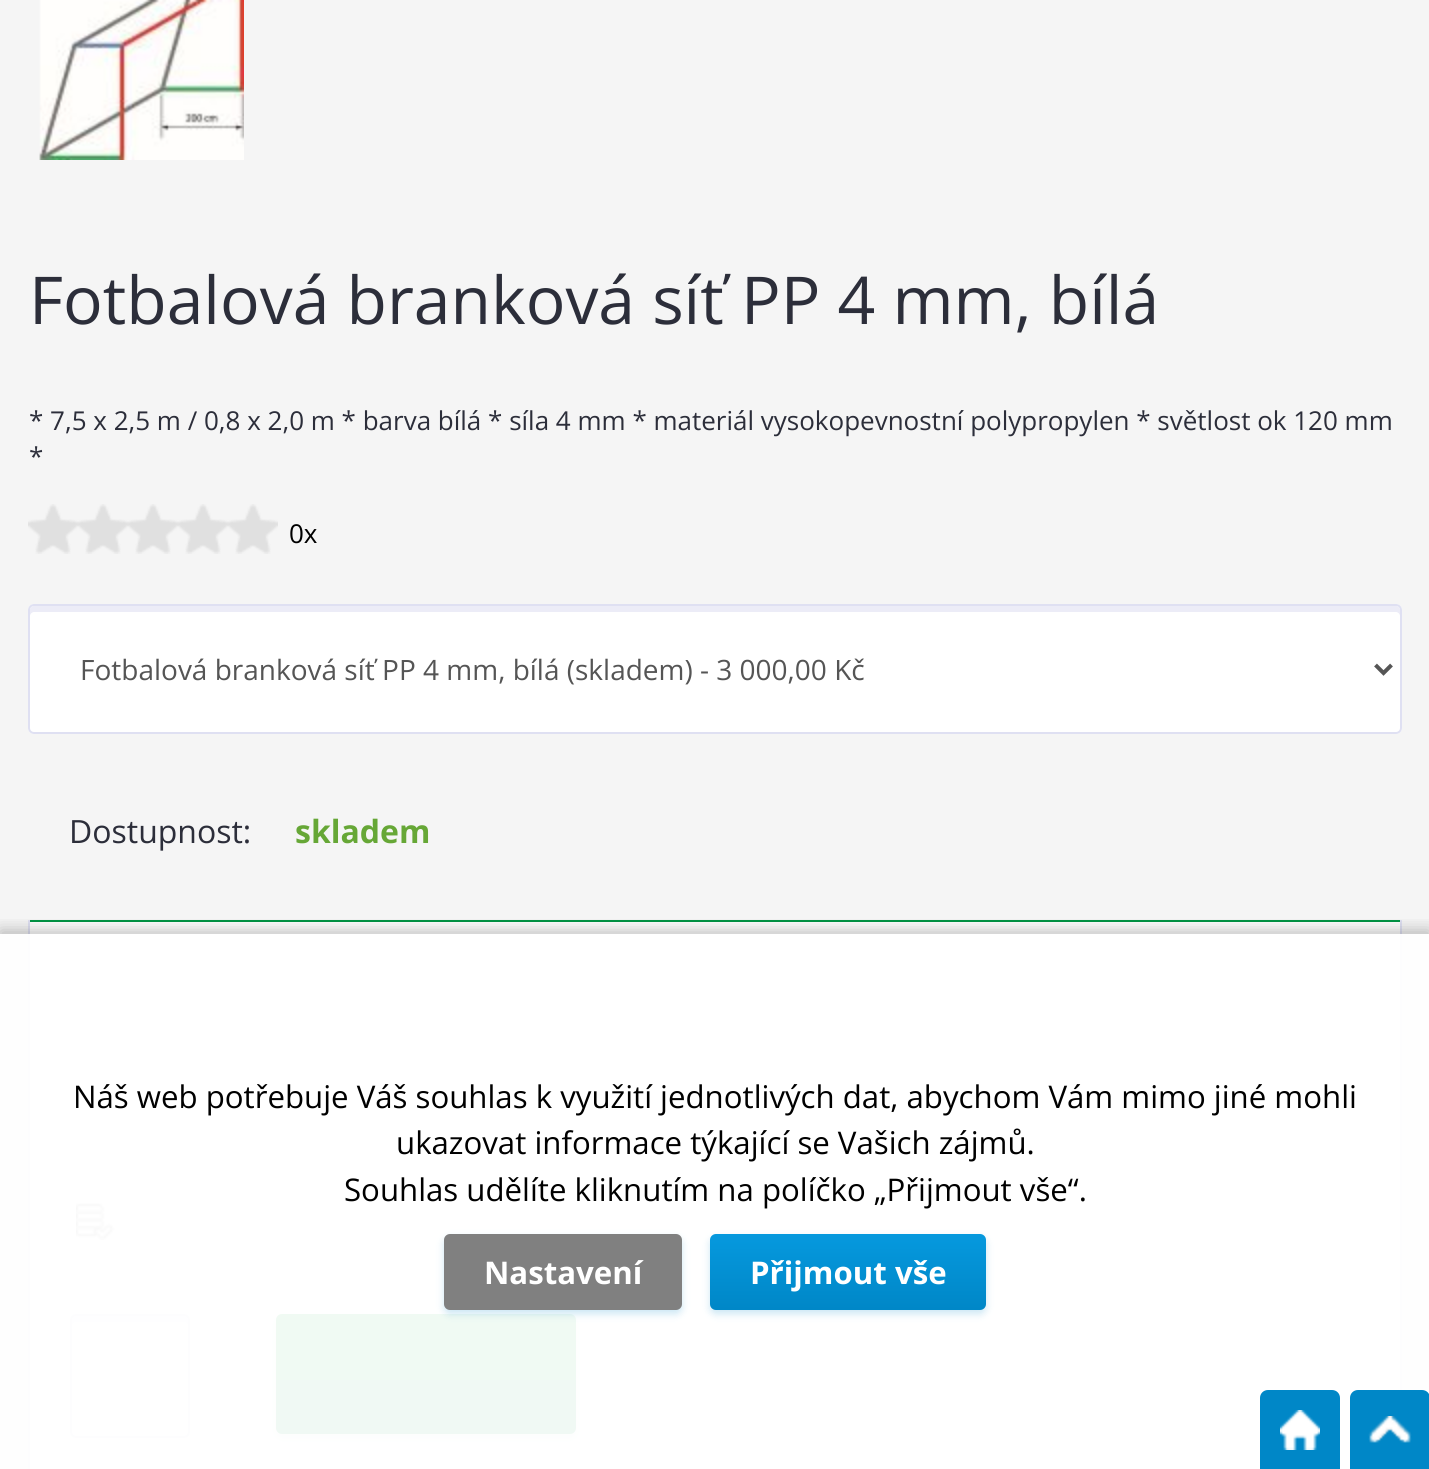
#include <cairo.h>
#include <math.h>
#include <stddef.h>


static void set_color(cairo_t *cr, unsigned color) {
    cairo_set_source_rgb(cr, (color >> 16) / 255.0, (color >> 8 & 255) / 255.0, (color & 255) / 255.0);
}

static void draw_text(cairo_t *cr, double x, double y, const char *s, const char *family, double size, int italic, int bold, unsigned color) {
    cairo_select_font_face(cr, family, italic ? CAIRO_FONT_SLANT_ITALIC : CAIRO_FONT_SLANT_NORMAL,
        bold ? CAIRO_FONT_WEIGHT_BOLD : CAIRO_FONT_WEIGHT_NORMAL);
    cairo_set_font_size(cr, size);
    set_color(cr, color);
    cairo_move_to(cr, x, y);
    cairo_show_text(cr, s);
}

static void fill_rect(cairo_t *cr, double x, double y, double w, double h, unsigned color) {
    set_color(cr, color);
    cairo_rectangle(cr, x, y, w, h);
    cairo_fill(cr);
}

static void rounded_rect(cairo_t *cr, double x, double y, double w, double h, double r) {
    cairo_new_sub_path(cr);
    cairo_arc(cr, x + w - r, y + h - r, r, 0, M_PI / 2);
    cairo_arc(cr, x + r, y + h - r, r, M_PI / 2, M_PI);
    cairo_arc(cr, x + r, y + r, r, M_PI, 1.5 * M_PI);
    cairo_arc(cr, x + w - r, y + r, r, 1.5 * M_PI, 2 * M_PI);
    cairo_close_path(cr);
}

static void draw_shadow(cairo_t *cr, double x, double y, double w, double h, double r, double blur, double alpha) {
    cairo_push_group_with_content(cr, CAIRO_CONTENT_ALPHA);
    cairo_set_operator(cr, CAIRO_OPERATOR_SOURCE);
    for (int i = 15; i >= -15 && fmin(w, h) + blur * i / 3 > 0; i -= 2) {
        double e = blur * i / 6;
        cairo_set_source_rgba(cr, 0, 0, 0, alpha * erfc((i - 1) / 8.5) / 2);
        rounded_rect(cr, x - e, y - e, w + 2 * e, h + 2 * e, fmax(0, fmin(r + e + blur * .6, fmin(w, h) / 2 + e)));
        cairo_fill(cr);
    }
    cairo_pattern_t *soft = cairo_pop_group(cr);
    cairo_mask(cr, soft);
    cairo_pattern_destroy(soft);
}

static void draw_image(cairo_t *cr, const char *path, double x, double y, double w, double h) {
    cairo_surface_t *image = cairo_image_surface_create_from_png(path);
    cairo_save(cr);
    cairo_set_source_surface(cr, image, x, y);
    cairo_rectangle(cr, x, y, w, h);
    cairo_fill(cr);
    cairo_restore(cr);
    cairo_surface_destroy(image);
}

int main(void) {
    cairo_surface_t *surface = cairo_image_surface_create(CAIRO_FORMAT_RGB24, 1429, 1469);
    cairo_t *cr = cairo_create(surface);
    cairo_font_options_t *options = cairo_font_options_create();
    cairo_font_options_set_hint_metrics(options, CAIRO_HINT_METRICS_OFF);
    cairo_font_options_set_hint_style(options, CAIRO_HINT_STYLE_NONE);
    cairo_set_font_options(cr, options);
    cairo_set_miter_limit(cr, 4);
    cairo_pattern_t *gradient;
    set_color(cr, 0xF5F5F5);
    cairo_paint(cr);
    draw_image(cr, "assets/img1.png", 39, 0, 205, 160);
    draw_text(cr, 29, 324, "Fotbalová branková síť PP 4 mm, bílá", "Open Sans", 66, 0, 0, 0x2C2E3A);
    draw_text(cr, 29, 430, "* 7,5 x 2,5 m / 0,8 x 2,0 m * barva bílá * síla 4 mm * materiál vysokopevnostní polypropylen * světlost ok 120 mm", "Open Sans", 26, 0, 0, 0x2C2E3A);
    draw_text(cr, 29, 466, "*", "Open Sans", 26, 0, 0, 0x2C2E3A);
    draw_image(cr, "assets/img2.png", 28, 504, 250, 50);
    draw_text(cr, 289, 543, "0x", "Open Sans", 26, 0, 0, 0x000000);
    set_color(cr, 0xFFFFFF);
    rounded_rect(cr, 28, 604, 1374, 130, 6);
    cairo_fill(cr);
    set_color(cr, 0xECECF7);
    cairo_new_path(cr);
    cairo_move_to(cr, 34, 612);
    cairo_line_to(cr, 1396, 612);
    cairo_curve_to(cr, 1398, 612, 1400, 614, 1400, 616);
    cairo_line_to(cr, 1400, 610);
    cairo_curve_to(cr, 1400, 608, 1398, 606, 1396, 606);
    cairo_line_to(cr, 34, 606);
    cairo_curve_to(cr, 32, 606, 30, 608, 30, 610);
    cairo_line_to(cr, 30, 616);
    cairo_curve_to(cr, 30, 614, 32, 612, 34, 612);
    cairo_close_path(cr);
    cairo_fill(cr);
    rounded_rect(cr, 29, 605, 1372, 128, 5);
    set_color(cr, 0xDFE0F2);
    cairo_stroke(cr);
    cairo_new_path(cr);
    cairo_move_to(cr, 1375.5, 665);
    cairo_line_to(cr, 1383.5, 673);
    cairo_line_to(cr, 1391.5, 665);
    set_color(cr, 0x555555);
    cairo_set_line_width(cr, 4);
    cairo_stroke(cr);
    draw_text(cr, 80, 680, "Fotbalová branková síť PP 4 mm, bílá (skladem) - 3 000,00 Kč", "Open Sans", 28, 0, 0, 0x555555);
    draw_text(cr, 69, 843, "Dostupnost:", "Open Sans", 32, 0, 0, 0x2C2E3A);
    draw_text(cr, 295, 843, "skladem", "Open Sans", 32, 0, 1, 0x66A736);
    fill_rect(cr, 30, 922, 1370, 547, 0xFFFFFF);
    fill_rect(cr, 28, 920, 1374, 2, 0x009445);
    fill_rect(cr, 1400, 920, 2, 470, 0xDFE0F2);
    fill_rect(cr, 28, 920, 2, 549, 0xDFE0F2);
    draw_image(cr, "assets/img3.png", 76, 1203, 39, 37);
    set_color(cr, 0xECECF7);
    cairo_new_path(cr);
    cairo_move_to(cr, 76, 1322);
    cairo_line_to(cr, 184, 1322);
    cairo_curve_to(cr, 186, 1322, 188, 1324, 188, 1326);
    cairo_line_to(cr, 188, 1320);
    cairo_curve_to(cr, 188, 1318, 186, 1316, 184, 1316);
    cairo_line_to(cr, 76, 1316);
    cairo_curve_to(cr, 74, 1316, 72, 1318, 72, 1320);
    cairo_line_to(cr, 72, 1326);
    cairo_curve_to(cr, 72, 1324, 74, 1322, 76, 1322);
    cairo_close_path(cr);
    cairo_fill(cr);
    rounded_rect(cr, 71, 1315, 118, 122, 5);
    set_color(cr, 0xDFE0F2);
    cairo_set_line_width(cr, 2);
    cairo_stroke(cr);
    set_color(cr, 0x009445);
    draw_shadow(cr, 276, 1318, 300, 120, 6, 4, 0.2);
    gradient = cairo_pattern_create_linear(426, 1314, 426, 1434);
    cairo_pattern_add_color_stop_rgba(gradient, 0, 0, 0.698, 0.188, 1);
    cairo_pattern_add_color_stop_rgba(gradient, 1, 0, 0.58, 0.271, 1);
    cairo_set_source(cr, gradient);
    cairo_pattern_destroy(gradient);
    rounded_rect(cr, 276, 1314, 300, 120, 6);
    cairo_fill(cr);
    cairo_save(cr);
    cairo_rectangle(cr, 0, 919, 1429, 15);
    cairo_clip(cr);
    set_color(cr, 0x000000);
    draw_shadow(cr, 0, 930, 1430, 536, 0, 8, 0.25);
    cairo_restore(cr);
    cairo_set_source_rgba(cr, 1, 1, 1, 0.94);
    cairo_rectangle(cr, 0, 934, 1429, 535);
    cairo_fill(cr);
    draw_text(cr, 73, 1108, "Náš web potřebuje Váš souhlas k využití jednotlivých dat, abychom Vám mimo jiné mohli", "Open Sans", 31.2, 0, 0, 0x000000);
    draw_text(cr, 396, 1154, "ukazovat informace týkající se Vašich zájmů.", "Open Sans", 31.2, 0, 0, 0x000000);
    draw_text(cr, 344, 1201, "Souhlas udělíte kliknutím na políčko „Přijmout vše“.", "Open Sans", 31.2, 0, 0, 0x000000);
    set_color(cr, 0x0087C7);
    draw_shadow(cr, 444, 1238, 238, 76, 6, 4, 0.2);
    set_color(cr, 0x808080);
    rounded_rect(cr, 444, 1234, 238, 76, 6);
    cairo_fill(cr);
    draw_text(cr, 484, 1284, "Nastavení", "Open Sans", 31.2, 0, 1, 0xFFFFFF);
    set_color(cr, 0x0087C7);
    draw_shadow(cr, 710, 1238, 276, 76, 6, 4, 0.2);
    gradient = cairo_pattern_create_linear(848, 1234, 848, 1310);
    cairo_pattern_add_color_stop_rgba(gradient, 0, 0.024, 0.6, 0.871, 1);
    cairo_pattern_add_color_stop_rgba(gradient, 1, 0, 0.529, 0.78, 1);
    cairo_set_source(cr, gradient);
    cairo_pattern_destroy(gradient);
    rounded_rect(cr, 710, 1234, 276, 76, 6);
    cairo_fill(cr);
    draw_text(cr, 750, 1284, "Přijmout vše", "Open Sans", 31.2, 0, 1, 0xFFFFFF);
    set_color(cr, 0x0087C7);
    cairo_new_path(cr);
    cairo_move_to(cr, 1268, 1390);
    cairo_line_to(cr, 1332, 1390);
    cairo_curve_to(cr, 1336.5, 1390, 1340, 1393.5, 1340, 1398);
    cairo_line_to(cr, 1340, 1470);
    cairo_line_to(cr, 1260, 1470);
    cairo_line_to(cr, 1260, 1398);
    cairo_curve_to(cr, 1260, 1393.5, 1263.5, 1390, 1268, 1390);
    cairo_close_path(cr);
    cairo_fill(cr);
    draw_image(cr, "assets/img4.png", 1280, 1410, 40, 40);
    cairo_new_path(cr);
    cairo_move_to(cr, 1358, 1390);
    cairo_line_to(cr, 1422, 1390);
    cairo_curve_to(cr, 1426.5, 1390, 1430, 1393.5, 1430, 1398);
    cairo_line_to(cr, 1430, 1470);
    cairo_line_to(cr, 1350, 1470);
    cairo_line_to(cr, 1350, 1398);
    cairo_curve_to(cr, 1350, 1393.5, 1353.5, 1390, 1358, 1390);
    cairo_close_path(cr);
    cairo_fill(cr);
    draw_image(cr, "assets/img5.png", 1368, 1416, 44, 27);
    cairo_surface_write_to_png(surface, "output.png");
    cairo_font_options_destroy(options);
    cairo_destroy(cr);
    cairo_surface_destroy(surface);
    return 0;
}
